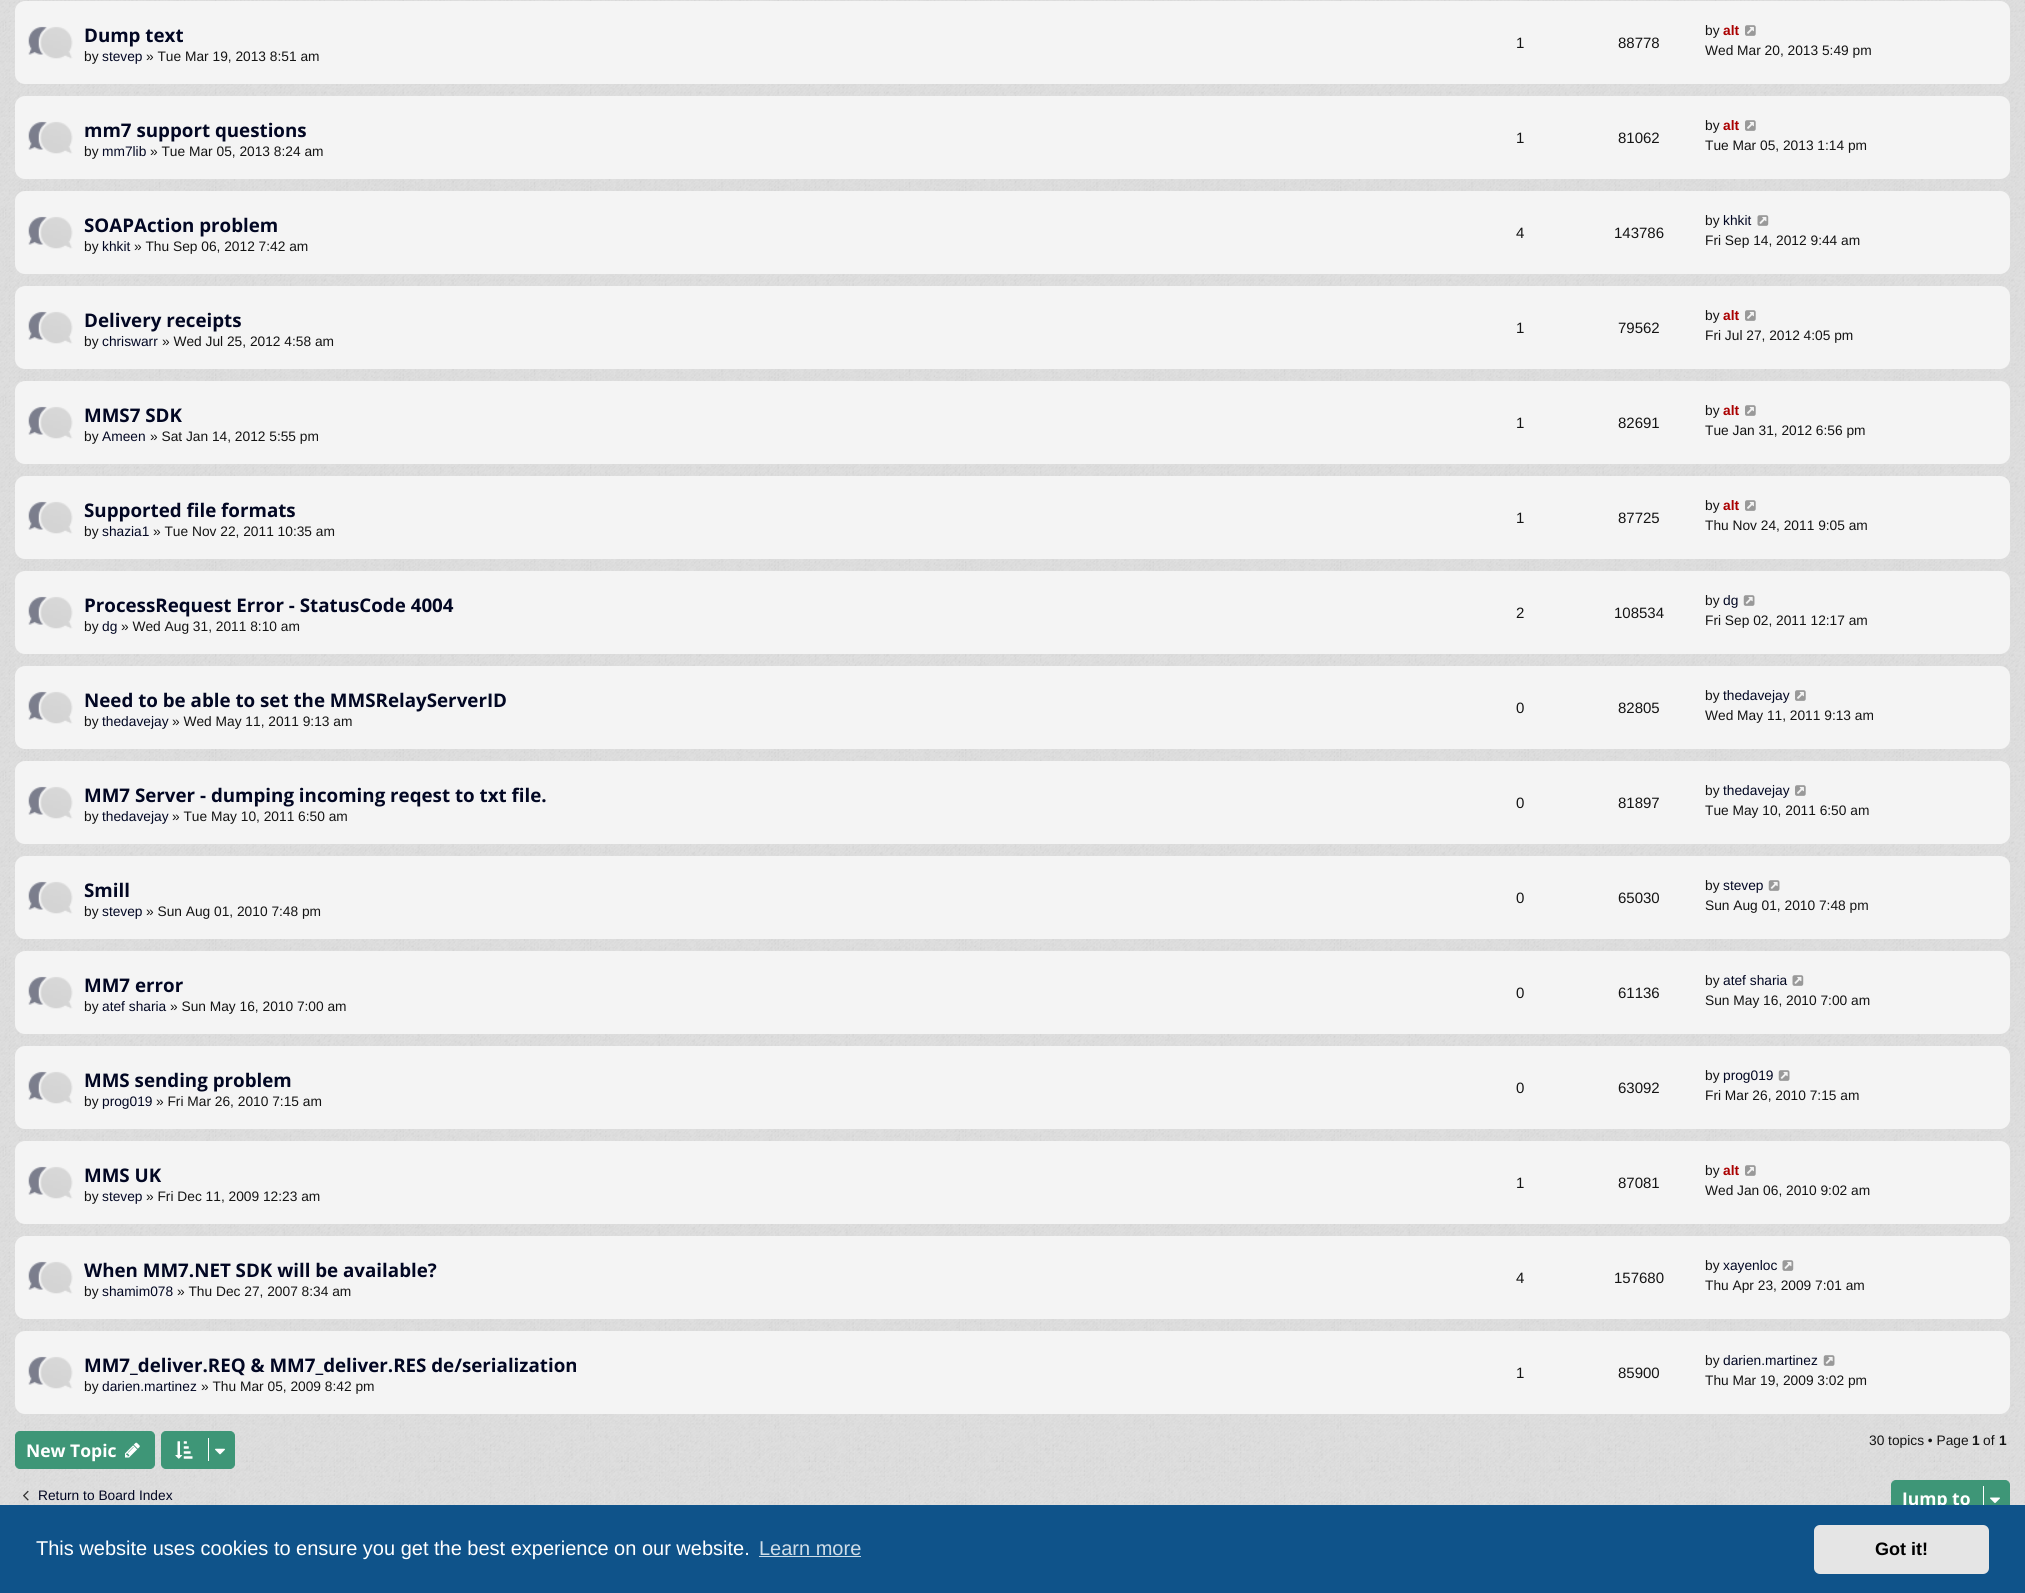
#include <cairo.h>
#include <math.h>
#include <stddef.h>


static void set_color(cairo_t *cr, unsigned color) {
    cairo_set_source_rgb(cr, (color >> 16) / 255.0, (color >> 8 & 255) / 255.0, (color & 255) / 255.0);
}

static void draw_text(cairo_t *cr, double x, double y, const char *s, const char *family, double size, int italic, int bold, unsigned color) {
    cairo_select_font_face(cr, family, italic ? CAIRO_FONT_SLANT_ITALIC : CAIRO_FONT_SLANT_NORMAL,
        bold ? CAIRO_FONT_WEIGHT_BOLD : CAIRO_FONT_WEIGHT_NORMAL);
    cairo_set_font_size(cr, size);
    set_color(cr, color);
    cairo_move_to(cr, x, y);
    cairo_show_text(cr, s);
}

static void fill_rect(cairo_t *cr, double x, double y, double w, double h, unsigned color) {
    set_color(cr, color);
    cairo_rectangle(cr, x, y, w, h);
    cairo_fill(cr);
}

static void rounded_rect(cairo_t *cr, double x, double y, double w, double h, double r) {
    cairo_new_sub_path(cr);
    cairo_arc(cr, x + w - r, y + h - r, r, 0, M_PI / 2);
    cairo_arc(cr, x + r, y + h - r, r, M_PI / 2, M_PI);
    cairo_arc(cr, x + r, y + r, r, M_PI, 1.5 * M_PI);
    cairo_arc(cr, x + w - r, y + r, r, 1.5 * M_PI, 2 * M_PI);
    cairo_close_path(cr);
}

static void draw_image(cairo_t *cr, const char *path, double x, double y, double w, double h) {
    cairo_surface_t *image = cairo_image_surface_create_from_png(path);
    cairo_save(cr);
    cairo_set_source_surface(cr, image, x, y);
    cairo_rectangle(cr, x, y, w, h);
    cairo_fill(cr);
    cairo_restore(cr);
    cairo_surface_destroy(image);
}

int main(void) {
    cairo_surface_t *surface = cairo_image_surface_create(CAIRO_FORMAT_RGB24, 2025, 1593);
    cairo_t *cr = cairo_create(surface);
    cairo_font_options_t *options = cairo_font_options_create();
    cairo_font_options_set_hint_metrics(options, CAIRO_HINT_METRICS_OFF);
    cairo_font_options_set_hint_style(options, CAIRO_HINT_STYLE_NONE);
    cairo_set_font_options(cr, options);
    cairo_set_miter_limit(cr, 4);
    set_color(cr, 0xE0E0E0);
    cairo_paint(cr);
    draw_image(cr, "assets/img1.png", 0, 0, 2025, 1505);
    set_color(cr, 0xF4F4F4);
    rounded_rect(cr, 15, 1, 1995, 83, 10);
    cairo_fill(cr);
    draw_image(cr, "assets/img2.png", 28, 26, 45, 33);
    draw_text(cr, 84, 42, "Dump text", "Open Sans", 18.75, 0, 1, 0x020723);
    draw_text(cr, 84, 61, "by", "Liberation Sans", 13.75, 0, 0, 0x141414);
    draw_text(cr, 102, 61, "stevep", "Liberation Sans", 13.75, 0, 0, 0x020723);
    draw_text(cr, 146, 61, "» Tue Mar 19, 2013 8:51 am", "Liberation Sans", 13.75, 0, 0, 0x141414);
    draw_text(cr, 1516, 48, "1", "Liberation Sans", 15, 0, 0, 0x141414);
    draw_text(cr, 1618, 48, "88778", "Liberation Sans", 15, 0, 0, 0x141414);
    draw_text(cr, 1705, 35, "by", "Liberation Sans", 13.75, 0, 0, 0x141414);
    draw_text(cr, 1723, 35, "alt", "Liberation Sans", 13.75, 0, 1, 0xAA0000);
    draw_image(cr, "assets/img3.png", 1745, 25, 11, 11);
    draw_text(cr, 1705, 55, "Wed Mar 20, 2013 5:49 pm", "Liberation Sans", 13.75, 0, 0, 0x141414);
    set_color(cr, 0xF4F4F4);
    rounded_rect(cr, 15, 96, 1995, 83, 10);
    cairo_fill(cr);
    draw_image(cr, "assets/img2.png", 28, 121, 45, 33);
    draw_text(cr, 84, 137, "mm7 support questions", "Open Sans", 18.75, 0, 1, 0x020723);
    draw_text(cr, 84, 156, "by", "Liberation Sans", 13.75, 0, 0, 0x141414);
    draw_text(cr, 102, 156, "mm7lib", "Liberation Sans", 13.75, 0, 0, 0x020723);
    draw_text(cr, 150, 156, "» Tue Mar 05, 2013 8:24 am", "Liberation Sans", 13.75, 0, 0, 0x141414);
    draw_text(cr, 1516, 143, "1", "Liberation Sans", 15, 0, 0, 0x141414);
    draw_text(cr, 1618, 143, "81062", "Liberation Sans", 15, 0, 0, 0x141414);
    draw_text(cr, 1705, 130, "by", "Liberation Sans", 13.75, 0, 0, 0x141414);
    draw_text(cr, 1723, 130, "alt", "Liberation Sans", 13.75, 0, 1, 0xAA0000);
    draw_image(cr, "assets/img3.png", 1745, 120, 11, 11);
    draw_text(cr, 1705, 150, "Tue Mar 05, 2013 1:14 pm", "Liberation Sans", 13.75, 0, 0, 0x141414);
    set_color(cr, 0xF4F4F4);
    rounded_rect(cr, 15, 191, 1995, 83, 10);
    cairo_fill(cr);
    draw_image(cr, "assets/img2.png", 28, 216, 45, 33);
    draw_text(cr, 84, 232, "SOAPAction problem", "Open Sans", 18.75, 0, 1, 0x020723);
    draw_text(cr, 84, 251, "by", "Liberation Sans", 13.75, 0, 0, 0x141414);
    draw_text(cr, 102, 251, "khkit", "Liberation Sans", 13.75, 0, 0, 0x020723);
    draw_text(cr, 134, 251, "» Thu Sep 06, 2012 7:42 am", "Liberation Sans", 13.75, 0, 0, 0x141414);
    draw_text(cr, 1516, 238, "4", "Liberation Sans", 15, 0, 0, 0x141414);
    draw_text(cr, 1614, 238, "143786", "Liberation Sans", 15, 0, 0, 0x141414);
    draw_text(cr, 1705, 225, "by", "Liberation Sans", 13.75, 0, 0, 0x141414);
    draw_text(cr, 1723, 225, "khkit", "Liberation Sans", 13.75, 0, 0, 0x020723);
    draw_image(cr, "assets/img4.png", 1757, 215, 12, 11);
    draw_text(cr, 1705, 245, "Fri Sep 14, 2012 9:44 am", "Liberation Sans", 13.75, 0, 0, 0x141414);
    set_color(cr, 0xF4F4F4);
    rounded_rect(cr, 15, 286, 1995, 83, 10);
    cairo_fill(cr);
    draw_image(cr, "assets/img2.png", 28, 311, 45, 33);
    draw_text(cr, 84, 327, "Delivery receipts", "Open Sans", 18.75, 0, 1, 0x020723);
    draw_text(cr, 84, 346, "by", "Liberation Sans", 13.75, 0, 0, 0x141414);
    draw_text(cr, 102, 346, "chriswarr", "Liberation Sans", 13.75, 0, 0, 0x020723);
    draw_text(cr, 162, 346, "» Wed Jul 25, 2012 4:58 am", "Liberation Sans", 13.75, 0, 0, 0x141414);
    draw_text(cr, 1516, 333, "1", "Liberation Sans", 15, 0, 0, 0x141414);
    draw_text(cr, 1618, 333, "79562", "Liberation Sans", 15, 0, 0, 0x141414);
    draw_text(cr, 1705, 320, "by", "Liberation Sans", 13.75, 0, 0, 0x141414);
    draw_text(cr, 1723, 320, "alt", "Liberation Sans", 13.75, 0, 1, 0xAA0000);
    draw_image(cr, "assets/img3.png", 1745, 310, 11, 11);
    draw_text(cr, 1705, 340, "Fri Jul 27, 2012 4:05 pm", "Liberation Sans", 13.75, 0, 0, 0x141414);
    set_color(cr, 0xF4F4F4);
    rounded_rect(cr, 15, 381, 1995, 83, 10);
    cairo_fill(cr);
    draw_image(cr, "assets/img2.png", 28, 406, 45, 33);
    draw_text(cr, 84, 422, "MMS7 SDK", "Open Sans", 18.75, 0, 1, 0x020723);
    draw_text(cr, 84, 441, "by", "Liberation Sans", 13.75, 0, 0, 0x141414);
    draw_text(cr, 102, 441, "Ameen", "Liberation Sans", 13.75, 0, 0, 0x020723);
    draw_text(cr, 150, 441, "» Sat Jan 14, 2012 5:55 pm", "Liberation Sans", 13.75, 0, 0, 0x141414);
    draw_text(cr, 1516, 428, "1", "Liberation Sans", 15, 0, 0, 0x141414);
    draw_text(cr, 1618, 428, "82691", "Liberation Sans", 15, 0, 0, 0x141414);
    draw_text(cr, 1705, 415, "by", "Liberation Sans", 13.75, 0, 0, 0x141414);
    draw_text(cr, 1723, 415, "alt", "Liberation Sans", 13.75, 0, 1, 0xAA0000);
    draw_image(cr, "assets/img3.png", 1745, 405, 11, 11);
    draw_text(cr, 1705, 435, "Tue Jan 31, 2012 6:56 pm", "Liberation Sans", 13.75, 0, 0, 0x141414);
    set_color(cr, 0xF4F4F4);
    rounded_rect(cr, 15, 476, 1995, 83, 10);
    cairo_fill(cr);
    draw_image(cr, "assets/img2.png", 28, 501, 45, 33);
    draw_text(cr, 84, 517, "Supported file formats", "Open Sans", 18.75, 0, 1, 0x020723);
    draw_text(cr, 84, 536, "by", "Liberation Sans", 13.75, 0, 0, 0x141414);
    draw_text(cr, 102, 536, "shazia1", "Liberation Sans", 13.75, 0, 0, 0x020723);
    draw_text(cr, 153, 536, "» Tue Nov 22, 2011 10:35 am", "Liberation Sans", 13.75, 0, 0, 0x141414);
    draw_text(cr, 1516, 523, "1", "Liberation Sans", 15, 0, 0, 0x141414);
    draw_text(cr, 1618, 523, "87725", "Liberation Sans", 15, 0, 0, 0x141414);
    draw_text(cr, 1705, 510, "by", "Liberation Sans", 13.75, 0, 0, 0x141414);
    draw_text(cr, 1723, 510, "alt", "Liberation Sans", 13.75, 0, 1, 0xAA0000);
    draw_image(cr, "assets/img3.png", 1745, 500, 11, 11);
    draw_text(cr, 1705, 530, "Thu Nov 24, 2011 9:05 am", "Liberation Sans", 13.75, 0, 0, 0x141414);
    set_color(cr, 0xF4F4F4);
    rounded_rect(cr, 15, 571, 1995, 83, 10);
    cairo_fill(cr);
    draw_image(cr, "assets/img5.png", 28, 596, 45, 33);
    draw_text(cr, 84, 612, "ProcessRequest Error - StatusCode 4004", "Open Sans", 18.75, 0, 1, 0x020723);
    draw_text(cr, 84, 631, "by", "Liberation Sans", 13.75, 0, 0, 0x141414);
    draw_text(cr, 102, 631, "dg", "Liberation Sans", 13.75, 0, 0, 0x020723);
    draw_text(cr, 121, 631, "» Wed Aug 31, 2011 8:10 am", "Liberation Sans", 13.75, 0, 0, 0x141414);
    draw_text(cr, 1516, 618, "2", "Liberation Sans", 15, 0, 0, 0x141414);
    draw_text(cr, 1614, 618, "108534", "Liberation Sans", 15, 0, 0, 0x141414);
    draw_text(cr, 1705, 605, "by", "Liberation Sans", 13.75, 0, 0, 0x141414);
    draw_text(cr, 1723, 605, "dg", "Liberation Sans", 13.75, 0, 0, 0x020723);
    draw_image(cr, "assets/img6.png", 1743, 595, 12, 11);
    draw_text(cr, 1705, 625, "Fri Sep 02, 2011 12:17 am", "Liberation Sans", 13.75, 0, 0, 0x141414);
    set_color(cr, 0xF4F4F4);
    rounded_rect(cr, 15, 666, 1995, 83, 10);
    cairo_fill(cr);
    draw_image(cr, "assets/img2.png", 28, 691, 45, 33);
    draw_text(cr, 84, 707, "Need to be able to set the MMSRelayServerID", "Open Sans", 18.75, 0, 1, 0x020723);
    draw_text(cr, 84, 726, "by", "Liberation Sans", 13.75, 0, 0, 0x141414);
    draw_text(cr, 102, 726, "thedavejay", "Liberation Sans", 13.75, 0, 0, 0x020723);
    draw_text(cr, 172, 726, "» Wed May 11, 2011 9:13 am", "Liberation Sans", 13.75, 0, 0, 0x141414);
    draw_text(cr, 1516, 713, "0", "Liberation Sans", 15, 0, 0, 0x141414);
    draw_text(cr, 1618, 713, "82805", "Liberation Sans", 15, 0, 0, 0x141414);
    draw_text(cr, 1705, 700, "by", "Liberation Sans", 13.75, 0, 0, 0x141414);
    draw_text(cr, 1723, 700, "thedavejay", "Liberation Sans", 13.75, 0, 0, 0x020723);
    draw_image(cr, "assets/img3.png", 1795, 690, 11, 11);
    draw_text(cr, 1705, 720, "Wed May 11, 2011 9:13 am", "Liberation Sans", 13.75, 0, 0, 0x141414);
    set_color(cr, 0xF4F4F4);
    rounded_rect(cr, 15, 761, 1995, 83, 10);
    cairo_fill(cr);
    draw_image(cr, "assets/img2.png", 28, 786, 45, 33);
    draw_text(cr, 84, 802, "MM7 Server - dumping incoming reqest to txt file.", "Open Sans", 18.75, 0, 1, 0x020723);
    draw_text(cr, 84, 821, "by", "Liberation Sans", 13.75, 0, 0, 0x141414);
    draw_text(cr, 102, 821, "thedavejay", "Liberation Sans", 13.75, 0, 0, 0x020723);
    draw_text(cr, 172, 821, "» Tue May 10, 2011 6:50 am", "Liberation Sans", 13.75, 0, 0, 0x141414);
    draw_text(cr, 1516, 808, "0", "Liberation Sans", 15, 0, 0, 0x141414);
    draw_text(cr, 1618, 808, "81897", "Liberation Sans", 15, 0, 0, 0x141414);
    draw_text(cr, 1705, 795, "by", "Liberation Sans", 13.75, 0, 0, 0x141414);
    draw_text(cr, 1723, 795, "thedavejay", "Liberation Sans", 13.75, 0, 0, 0x020723);
    draw_image(cr, "assets/img3.png", 1795, 785, 11, 11);
    draw_text(cr, 1705, 815, "Tue May 10, 2011 6:50 am", "Liberation Sans", 13.75, 0, 0, 0x141414);
    set_color(cr, 0xF4F4F4);
    rounded_rect(cr, 15, 856, 1995, 83, 10);
    cairo_fill(cr);
    draw_image(cr, "assets/img2.png", 28, 881, 45, 33);
    draw_text(cr, 84, 897, "Smill", "Open Sans", 18.75, 0, 1, 0x020723);
    draw_text(cr, 84, 916, "by", "Liberation Sans", 13.75, 0, 0, 0x141414);
    draw_text(cr, 102, 916, "stevep", "Liberation Sans", 13.75, 0, 0, 0x020723);
    draw_text(cr, 146, 916, "» Sun Aug 01, 2010 7:48 pm", "Liberation Sans", 13.75, 0, 0, 0x141414);
    draw_text(cr, 1516, 903, "0", "Liberation Sans", 15, 0, 0, 0x141414);
    draw_text(cr, 1618, 903, "65030", "Liberation Sans", 15, 0, 0, 0x141414);
    draw_text(cr, 1705, 890, "by", "Liberation Sans", 13.75, 0, 0, 0x141414);
    draw_text(cr, 1723, 890, "stevep", "Liberation Sans", 13.75, 0, 0, 0x020723);
    draw_image(cr, "assets/img6.png", 1768, 880, 12, 11);
    draw_text(cr, 1705, 910, "Sun Aug 01, 2010 7:48 pm", "Liberation Sans", 13.75, 0, 0, 0x141414);
    set_color(cr, 0xF4F4F4);
    rounded_rect(cr, 15, 951, 1995, 83, 10);
    cairo_fill(cr);
    draw_image(cr, "assets/img7.png", 28, 976, 45, 33);
    draw_text(cr, 84, 992, "MM7 error", "Open Sans", 18.75, 0, 1, 0x020723);
    draw_text(cr, 84, 1011, "by", "Liberation Sans", 13.75, 0, 0, 0x141414);
    draw_text(cr, 102, 1011, "atef sharia", "Liberation Sans", 13.75, 0, 0, 0x020723);
    draw_text(cr, 170, 1011, "» Sun May 16, 2010 7:00 am", "Liberation Sans", 13.75, 0, 0, 0x141414);
    draw_text(cr, 1516, 998, "0", "Liberation Sans", 15, 0, 0, 0x141414);
    draw_text(cr, 1618, 998, "61136", "Liberation Sans", 15, 0, 0, 0x141414);
    draw_text(cr, 1705, 985, "by", "Liberation Sans", 13.75, 0, 0, 0x141414);
    draw_text(cr, 1723, 985, "atef sharia", "Liberation Sans", 13.75, 0, 0, 0x020723);
    draw_image(cr, "assets/img4.png", 1792, 975, 12, 11);
    draw_text(cr, 1705, 1005, "Sun May 16, 2010 7:00 am", "Liberation Sans", 13.75, 0, 0, 0x141414);
    set_color(cr, 0xF4F4F4);
    rounded_rect(cr, 15, 1046, 1995, 83, 10);
    cairo_fill(cr);
    draw_image(cr, "assets/img2.png", 28, 1071, 45, 33);
    draw_text(cr, 84, 1087, "MMS sending problem", "Open Sans", 18.75, 0, 1, 0x020723);
    draw_text(cr, 84, 1106, "by", "Liberation Sans", 13.75, 0, 0, 0x141414);
    draw_text(cr, 102, 1106, "prog019", "Liberation Sans", 13.75, 0, 0, 0x020723);
    draw_text(cr, 156, 1106, "» Fri Mar 26, 2010 7:15 am", "Liberation Sans", 13.75, 0, 0, 0x141414);
    draw_text(cr, 1516, 1093, "0", "Liberation Sans", 15, 0, 0, 0x141414);
    draw_text(cr, 1618, 1093, "63092", "Liberation Sans", 15, 0, 0, 0x141414);
    draw_text(cr, 1705, 1080, "by", "Liberation Sans", 13.75, 0, 0, 0x141414);
    draw_text(cr, 1723, 1080, "prog019", "Liberation Sans", 13.75, 0, 0, 0x020723);
    draw_image(cr, "assets/img6.png", 1778, 1070, 12, 11);
    draw_text(cr, 1705, 1100, "Fri Mar 26, 2010 7:15 am", "Liberation Sans", 13.75, 0, 0, 0x141414);
    set_color(cr, 0xF4F4F4);
    rounded_rect(cr, 15, 1141, 1995, 83, 10);
    cairo_fill(cr);
    draw_image(cr, "assets/img2.png", 28, 1166, 45, 33);
    draw_text(cr, 84, 1182, "MMS UK", "Open Sans", 18.75, 0, 1, 0x020723);
    draw_text(cr, 84, 1201, "by", "Liberation Sans", 13.75, 0, 0, 0x141414);
    draw_text(cr, 102, 1201, "stevep", "Liberation Sans", 13.75, 0, 0, 0x020723);
    draw_text(cr, 146, 1201, "» Fri Dec 11, 2009 12:23 am", "Liberation Sans", 13.75, 0, 0, 0x141414);
    draw_text(cr, 1516, 1188, "1", "Liberation Sans", 15, 0, 0, 0x141414);
    draw_text(cr, 1618, 1188, "87081", "Liberation Sans", 15, 0, 0, 0x141414);
    draw_text(cr, 1705, 1175, "by", "Liberation Sans", 13.75, 0, 0, 0x141414);
    draw_text(cr, 1723, 1175, "alt", "Liberation Sans", 13.75, 0, 1, 0xAA0000);
    draw_image(cr, "assets/img3.png", 1745, 1165, 11, 11);
    draw_text(cr, 1705, 1195, "Wed Jan 06, 2010 9:02 am", "Liberation Sans", 13.75, 0, 0, 0x141414);
    set_color(cr, 0xF4F4F4);
    rounded_rect(cr, 15, 1236, 1995, 83, 10);
    cairo_fill(cr);
    draw_image(cr, "assets/img8.png", 28, 1261, 45, 33);
    draw_text(cr, 84, 1277, "When MM7.NET SDK will be available?", "Open Sans", 18.75, 0, 1, 0x020723);
    draw_text(cr, 84, 1296, "by", "Liberation Sans", 13.75, 0, 0, 0x141414);
    draw_text(cr, 102, 1296, "shamim078", "Liberation Sans", 13.75, 0, 0, 0x020723);
    draw_text(cr, 177, 1296, "» Thu Dec 27, 2007 8:34 am", "Liberation Sans", 13.75, 0, 0, 0x141414);
    draw_text(cr, 1516, 1283, "4", "Liberation Sans", 15, 0, 0, 0x141414);
    draw_text(cr, 1614, 1283, "157680", "Liberation Sans", 15, 0, 0, 0x141414);
    draw_text(cr, 1705, 1270, "by", "Liberation Sans", 13.75, 0, 0, 0x141414);
    draw_text(cr, 1723, 1270, "xayenloc", "Liberation Sans", 13.75, 0, 0, 0x020723);
    draw_image(cr, "assets/img4.png", 1782, 1260, 12, 11);
    draw_text(cr, 1705, 1290, "Thu Apr 23, 2009 7:01 am", "Liberation Sans", 13.75, 0, 0, 0x141414);
    set_color(cr, 0xF4F4F4);
    rounded_rect(cr, 15, 1331, 1995, 83, 10);
    cairo_fill(cr);
    draw_image(cr, "assets/img2.png", 28, 1356, 45, 33);
    draw_text(cr, 84, 1372, "MM7_deliver.REQ & MM7_deliver.RES de/serialization", "Open Sans", 18.75, 0, 1, 0x020723);
    draw_text(cr, 84, 1391, "by", "Liberation Sans", 13.75, 0, 0, 0x141414);
    draw_text(cr, 102, 1391, "darien.martinez", "Liberation Sans", 13.75, 0, 0, 0x020723);
    draw_text(cr, 201, 1391, "» Thu Mar 05, 2009 8:42 pm", "Liberation Sans", 13.75, 0, 0, 0x141414);
    draw_text(cr, 1516, 1378, "1", "Liberation Sans", 15, 0, 0, 0x141414);
    draw_text(cr, 1618, 1378, "85900", "Liberation Sans", 15, 0, 0, 0x141414);
    draw_text(cr, 1705, 1365, "by", "Liberation Sans", 13.75, 0, 0, 0x141414);
    draw_text(cr, 1723, 1365, "darien.martinez", "Liberation Sans", 13.75, 0, 0, 0x020723);
    draw_image(cr, "assets/img6.png", 1823, 1355, 12, 11);
    draw_text(cr, 1705, 1385, "Thu Mar 19, 2009 3:02 pm", "Liberation Sans", 13.75, 0, 0, 0x141414);
    set_color(cr, 0x3E9677);
    rounded_rect(cr, 161.5, 1431.5, 73, 37, 4.5);
    cairo_fill_preserve(cr);
    cairo_set_line_width(cr, 1);
    cairo_stroke(cr);
    draw_image(cr, "assets/img9.png", 175, 1441, 18, 18);
    fill_rect(cr, 208, 1438, 1, 23, 0xFFFFFF);
    draw_image(cr, "assets/img10.png", 215, 1448, 10, 7);
    draw_text(cr, 1869, 1445, "30 topics • Page", "Liberation Sans", 13.75, 0, 0, 0x141414);
    draw_text(cr, 1972, 1445, "1", "Liberation Sans", 13.75, 0, 1, 0x141414);
    draw_text(cr, 1983, 1445, "of", "Liberation Sans", 13.75, 0, 0, 0x141414);
    draw_text(cr, 1999, 1445, "1", "Liberation Sans", 13.75, 0, 1, 0x141414);
    set_color(cr, 0x3E9677);
    rounded_rect(cr, 15.5, 1431.5, 139, 37, 4.5);
    cairo_fill_preserve(cr);
    cairo_stroke(cr);
    draw_text(cr, 26, 1457, "New Topic", "Open Sans", 17.5, 0, 1, 0xFFFFFF);
    draw_image(cr, "assets/img11.png", 125, 1442, 15, 16);
    draw_image(cr, "assets/img12.png", 23, 1490, 6, 11);
    draw_text(cr, 38, 1500, "Return to Board Index", "Liberation Sans", 13.75, 0, 0, 0x020723);
    set_color(cr, 0x3E9677);
    rounded_rect(cr, 1891.5, 1480.5, 118, 37, 4.5);
    cairo_fill_preserve(cr);
    cairo_stroke(cr);
    draw_text(cr, 1902, 1505, "Jump to", "Open Sans", 17.5, 0, 1, 0xFFFFFF);
    fill_rect(cr, 1983, 1486, 1, 24, 0xFFFFFF);
    draw_image(cr, "assets/img13.png", 1990, 1497, 10, 6);
    fill_rect(cr, 0, 1505, 2025, 88, 0x0F538A);
    draw_text(cr, 36, 1555, "This website uses cookies to ensure you get the best experience on our website.", "Liberation Sans", 20, 0, 0, 0xFFFFFF);
    draw_text(cr, 759, 1555, "Learn more", "Liberation Sans", 20, 0, 0, 0xCFDDE8);
    fill_rect(cr, 759, 1556, 102, 1, 0xCFDDE8);
    set_color(cr, 0xE5E5E5);
    rounded_rect(cr, 1814, 1525, 175, 49, 6);
    cairo_fill(cr);
    draw_text(cr, 1875, 1555, "Got it!", "Liberation Sans", 18, 0, 1, 0x000000);
    cairo_surface_write_to_png(surface, "output.png");
    cairo_font_options_destroy(options);
    cairo_destroy(cr);
    cairo_surface_destroy(surface);
    return 0;
}
